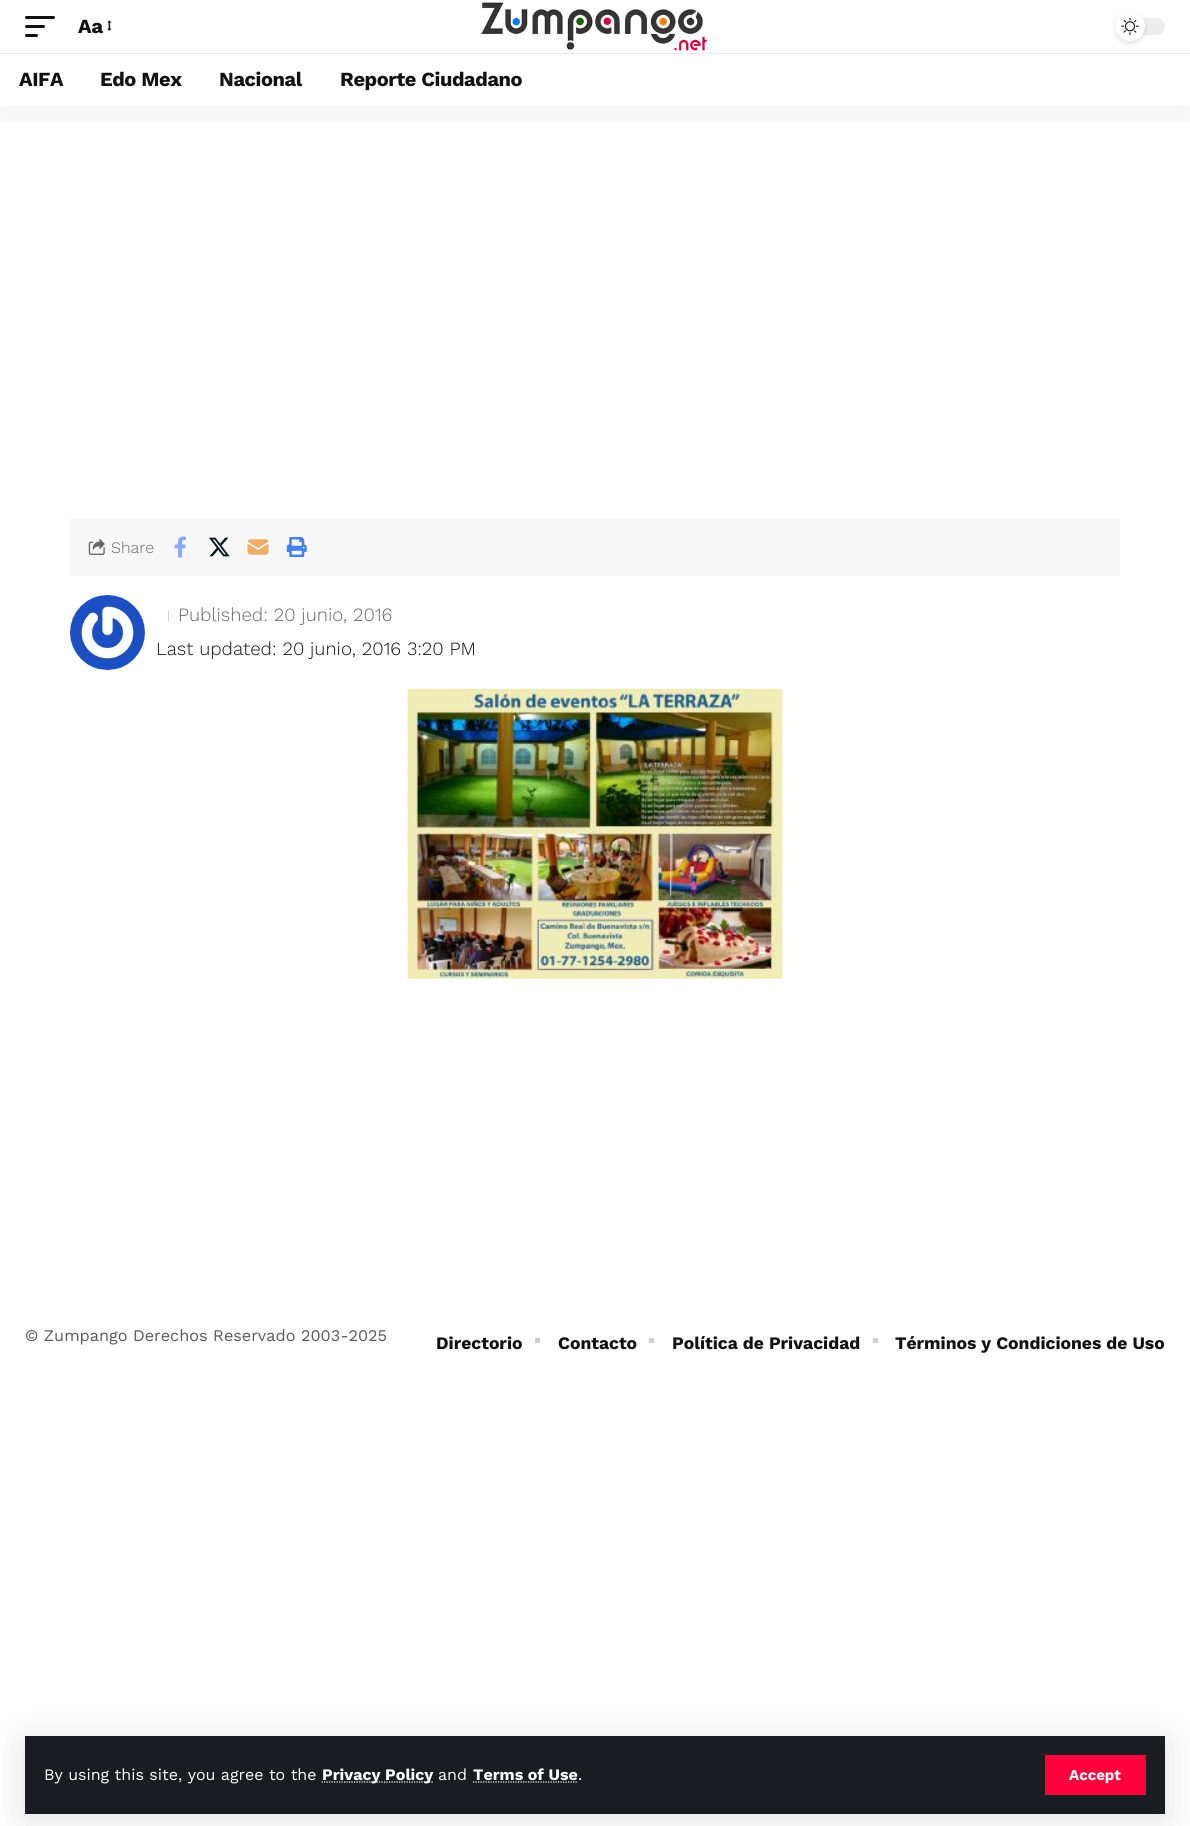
#include <cairo.h>
#include <math.h>
#include <stddef.h>


static void set_color(cairo_t *cr, unsigned color) {
    cairo_set_source_rgb(cr, (color >> 16) / 255.0, (color >> 8 & 255) / 255.0, (color & 255) / 255.0);
}

static void draw_text(cairo_t *cr, double x, double y, const char *s, const char *family, double size, int italic, int bold, unsigned color) {
    cairo_select_font_face(cr, family, italic ? CAIRO_FONT_SLANT_ITALIC : CAIRO_FONT_SLANT_NORMAL,
        bold ? CAIRO_FONT_WEIGHT_BOLD : CAIRO_FONT_WEIGHT_NORMAL);
    cairo_set_font_size(cr, size);
    set_color(cr, color);
    cairo_move_to(cr, x, y);
    cairo_show_text(cr, s);
}

static void draw_spaced(cairo_t *cr, double x, double y, const char *s, double letter, double word) {
    cairo_move_to(cr, x, y);
    while (*s) {
        char ch[5] = {0};
        int n = 0;
        do ch[n++] = *s++; while ((*s & 0xC0) == 0x80);
        cairo_show_text(cr, ch);
        cairo_rel_move_to(cr, letter + word * (*ch == ' '), 0);
    }
}

static void fill_rect(cairo_t *cr, double x, double y, double w, double h, unsigned color) {
    set_color(cr, color);
    cairo_rectangle(cr, x, y, w, h);
    cairo_fill(cr);
}

static void rounded_rect(cairo_t *cr, double x, double y, double w, double h, double r) {
    cairo_new_sub_path(cr);
    cairo_arc(cr, x + w - r, y + h - r, r, 0, M_PI / 2);
    cairo_arc(cr, x + r, y + h - r, r, M_PI / 2, M_PI);
    cairo_arc(cr, x + r, y + r, r, M_PI, 1.5 * M_PI);
    cairo_arc(cr, x + w - r, y + r, r, 1.5 * M_PI, 2 * M_PI);
    cairo_close_path(cr);
}

static void draw_shadow(cairo_t *cr, double x, double y, double w, double h, double r, double blur, double alpha) {
    cairo_push_group_with_content(cr, CAIRO_CONTENT_ALPHA);
    cairo_set_operator(cr, CAIRO_OPERATOR_SOURCE);
    for (int i = 15; i >= -15 && fmin(w, h) + blur * i / 3 > 0; i -= 2) {
        double e = blur * i / 6;
        cairo_set_source_rgba(cr, 0, 0, 0, alpha * erfc((i - 1) / 8.5) / 2);
        rounded_rect(cr, x - e, y - e, w + 2 * e, h + 2 * e, fmax(0, fmin(r + e + blur * .6, fmin(w, h) / 2 + e)));
        cairo_fill(cr);
    }
    cairo_pattern_t *soft = cairo_pop_group(cr);
    cairo_mask(cr, soft);
    cairo_pattern_destroy(soft);
}

static void draw_image(cairo_t *cr, const char *path, double x, double y, double w, double h) {
    cairo_surface_t *image = cairo_image_surface_create_from_png(path);
    cairo_save(cr);
    cairo_set_source_surface(cr, image, x, y);
    cairo_rectangle(cr, x, y, w, h);
    cairo_fill(cr);
    cairo_restore(cr);
    cairo_surface_destroy(image);
}

int main(void) {
    cairo_surface_t *surface = cairo_image_surface_create(CAIRO_FORMAT_RGB24, 1190, 1826);
    cairo_t *cr = cairo_create(surface);
    cairo_font_options_t *options = cairo_font_options_create();
    cairo_font_options_set_hint_metrics(options, CAIRO_HINT_METRICS_OFF);
    cairo_font_options_set_hint_style(options, CAIRO_HINT_STYLE_NONE);
    cairo_set_font_options(cr, options);
    cairo_set_miter_limit(cr, 4);
    set_color(cr, 0xFFFFFF);
    cairo_paint(cr);
    cairo_save(cr);
    cairo_rectangle(cr, 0, 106, 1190, 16);
    cairo_clip(cr);
    set_color(cr, 0x000000);
    draw_shadow(cr, 0, 5, 1190, 106, 0, 19, 0.07);
    cairo_restore(cr);
    set_color(cr, 0x111111);
    rounded_rect(cr, 25, 16, 30, 3, 1.5);
    cairo_fill(cr);
    rounded_rect(cr, 25, 25, 20, 3, 1.5);
    cairo_fill(cr);
    rounded_rect(cr, 25, 34, 13, 3, 1.5);
    cairo_fill(cr);
    draw_text(cr, 78, 33, "Aa", "Work Sans", 20, 0, 1, 0x111111);
    draw_image(cr, "assets/img1.png", 107, 20, 5, 11);
    draw_image(cr, "assets/img2.png", 481, 2, 227, 49);
    set_color(cr, 0xEDEDED);
    rounded_rect(cr, 1115, 18, 50, 17, 8.5);
    cairo_fill(cr);
    set_color(cr, 0x000000);
    draw_shadow(cr, 1115, 13, 30, 30, 15, 2.5, 0.12);
    set_color(cr, 0xFFFFFF);
    cairo_arc(cr, 1130, 26, 15, 0, 2 * M_PI);
    cairo_fill(cr);
    draw_image(cr, "assets/img3.png", 1121, 18, 18, 17);
    fill_rect(cr, 0, 53, 1190, 1, 0xEAEAEA);
    set_color(cr, 0x111111);
    draw_spaced(cr, 19, 86, "AIFA", -0.4, 0);
    draw_spaced(cr, 100, 86, "Edo Mex", -0.4, 0);
    draw_spaced(cr, 219, 86, "Nacional", -0.4, 0);
    draw_spaced(cr, 340, 86, "Reporte Ciudadano", -0.4, 0);
    set_color(cr, 0x000000);
    draw_shadow(cr, 25, 1741, 1140, 78, 0, 19, 0.12);
    fill_rect(cr, 25, 1736, 1140, 78, 0x191C20);
    draw_text(cr, 44, 1780, "By using this site, you agree to the", "Work Sans", 16, 0, 0, 0xFFFFFF);
    cairo_new_path(cr);
    cairo_move_to(cr, 321.5, 1782);
    cairo_line_to(cr, 433, 1782);
    cairo_set_line_width(cr, 1.2);
    cairo_set_dash(cr, (double[]){1.25, 1.25}, 2, 0);
    cairo_stroke(cr);
    draw_text(cr, 322, 1780, "Privacy Policy", "Work Sans", 16, 0, 1, 0xFFFFFF);
    draw_text(cr, 438, 1780, "and", "Work Sans", 16, 0, 0, 0xFFFFFF);
    draw_text(cr, 473, 1780, "Terms of Use", "Work Sans", 16, 0, 1, 0xFFFFFF);
    cairo_new_path(cr);
    cairo_move_to(cr, 473, 1782);
    cairo_line_to(cr, 577.5, 1782);
    cairo_stroke(cr);
    draw_text(cr, 578, 1780, ".", "Work Sans", 16, 0, 0, 0xFFFFFF);
    fill_rect(cr, 1045, 1755, 101, 40, 0xFF003C);
    draw_text(cr, 1069, 1780, "Accept", "Work Sans", 15, 0, 1, 0xFFFFFF);
    fill_rect(cr, 70, 519, 1050, 57, 0xF7F7F7);
    draw_image(cr, "assets/img4.png", 88, 539, 17, 16);
    draw_text(cr, 111, 553, "Share", "Work Sans Light", 16, 0, 0, 0x666666);
    draw_image(cr, "assets/img5.png", 174, 536, 12, 22);
    draw_image(cr, "assets/img6.png", 209, 537, 21, 20);
    draw_image(cr, "assets/img7.png", 247, 539, 22, 16);
    draw_image(cr, "assets/img8.png", 286, 537, 21, 20);
    draw_image(cr, "assets/img9.png", 70, 595, 75, 75);
    fill_rect(cr, 168, 611, 1, 10, 0xD1D1D1);
    draw_text(cr, 178, 621, "Published: 20 junio, 2016", "Work Sans Light", 18.7, 0, 0, 0x666666);
    draw_text(cr, 156, 655, "Last updated: 20 junio, 2016 3:20 PM", "Work Sans Light", 18.7, 0, 0, 0x111111);
    draw_image(cr, "assets/img10.png", 407, 688, 376, 291);
    draw_text(cr, 25, 1341, "© Zumpango Derechos Reservado 2003-2025", "Work Sans", 16.25, 0, 0, 0x585858);
    draw_text(cr, 436, 1349, "Directorio", "Work Sans", 17.5, 0, 1, 0x111111);
    fill_rect(cr, 535, 1338, 5, 5, 0xCFCFCF);
    draw_text(cr, 558, 1349, "Contacto", "Work Sans", 17.5, 0, 1, 0x111111);
    fill_rect(cr, 649, 1338, 5, 5, 0xCFCFCF);
    draw_text(cr, 672, 1349, "Política de Privacidad", "Work Sans", 17.5, 0, 1, 0x111111);
    fill_rect(cr, 873, 1338, 5, 5, 0xCFCFCF);
    draw_text(cr, 895, 1349, "Términos y Condiciones de Uso", "Work Sans", 17.5, 0, 1, 0x111111);
    cairo_surface_write_to_png(surface, "output.png");
    cairo_font_options_destroy(options);
    cairo_destroy(cr);
    cairo_surface_destroy(surface);
    return 0;
}
